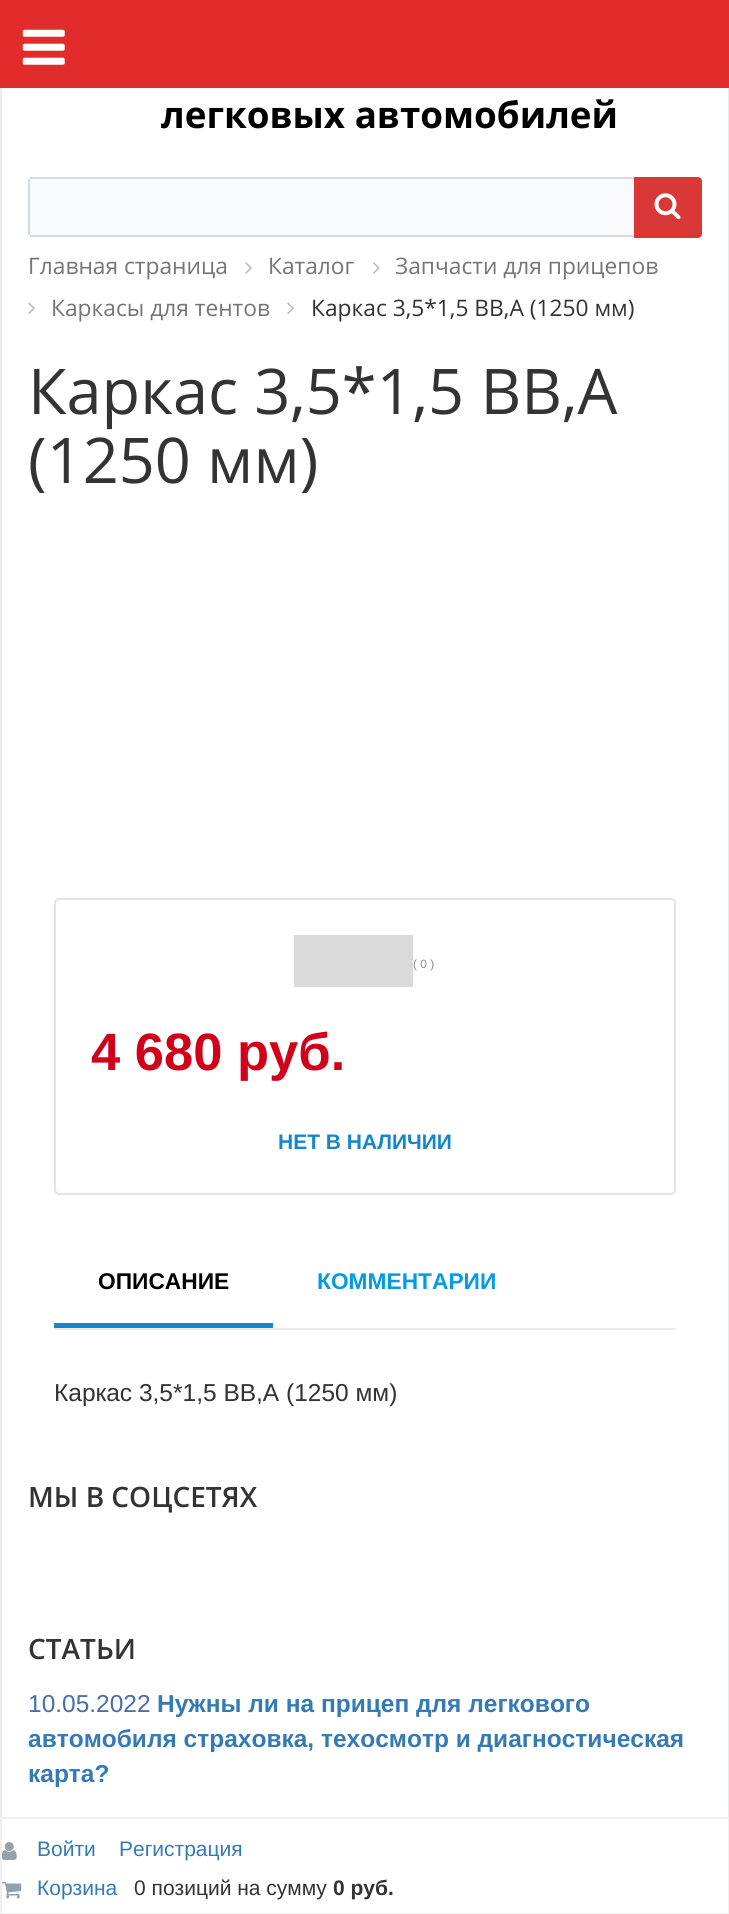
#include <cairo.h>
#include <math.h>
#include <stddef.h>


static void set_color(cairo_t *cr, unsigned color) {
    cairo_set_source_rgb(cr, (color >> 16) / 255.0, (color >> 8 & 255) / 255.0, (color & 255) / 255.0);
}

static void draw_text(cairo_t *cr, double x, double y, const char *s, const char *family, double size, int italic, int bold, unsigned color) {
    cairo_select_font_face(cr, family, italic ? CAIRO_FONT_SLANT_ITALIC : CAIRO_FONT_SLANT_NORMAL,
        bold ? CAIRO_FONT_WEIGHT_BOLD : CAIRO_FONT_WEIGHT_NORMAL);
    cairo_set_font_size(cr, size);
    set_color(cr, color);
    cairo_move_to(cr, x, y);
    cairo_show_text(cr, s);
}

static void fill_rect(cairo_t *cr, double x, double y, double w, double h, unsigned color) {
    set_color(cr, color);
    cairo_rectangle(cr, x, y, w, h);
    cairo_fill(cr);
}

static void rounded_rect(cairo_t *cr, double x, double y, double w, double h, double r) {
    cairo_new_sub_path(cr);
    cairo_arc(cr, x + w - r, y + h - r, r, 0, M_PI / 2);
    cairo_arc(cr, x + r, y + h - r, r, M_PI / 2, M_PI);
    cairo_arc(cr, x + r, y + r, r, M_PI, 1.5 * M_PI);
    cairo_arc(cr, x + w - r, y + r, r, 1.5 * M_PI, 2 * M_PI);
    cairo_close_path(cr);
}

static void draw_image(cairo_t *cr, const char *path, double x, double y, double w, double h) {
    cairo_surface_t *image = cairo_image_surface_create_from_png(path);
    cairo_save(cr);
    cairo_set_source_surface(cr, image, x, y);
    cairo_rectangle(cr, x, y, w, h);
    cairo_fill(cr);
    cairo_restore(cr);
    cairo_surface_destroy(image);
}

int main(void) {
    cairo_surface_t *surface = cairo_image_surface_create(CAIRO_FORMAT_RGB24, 729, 1914);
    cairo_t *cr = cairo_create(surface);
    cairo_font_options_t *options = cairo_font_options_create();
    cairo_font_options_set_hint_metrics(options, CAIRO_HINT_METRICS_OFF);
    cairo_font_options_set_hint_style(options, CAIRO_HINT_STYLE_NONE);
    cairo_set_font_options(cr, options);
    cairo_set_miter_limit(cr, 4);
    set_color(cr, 0xFFFFFF);
    cairo_paint(cr);
    fill_rect(cr, 0, 0, 729, 88, 0xE22B2B);
    draw_image(cr, "assets/img1.png", 22, 29, 43, 36);
    fill_rect(cr, 728, 88, 1, 1730, 0xEAEBEC);
    fill_rect(cr, 0, 88, 2, 1826, 0xEAEBEC);
    draw_text(cr, 161, 128, "легковых автомобилей", "Open Sans", 36.75, 0, 1, 0x000000);
    set_color(cr, 0xF8FAFC);
    cairo_new_path(cr);
    cairo_move_to(cr, 32, 177);
    cairo_line_to(cr, 634, 177);
    cairo_line_to(cr, 634, 236);
    cairo_line_to(cr, 32, 236);
    cairo_curve_to(cr, 30, 236, 28, 234, 28, 232);
    cairo_line_to(cr, 28, 181);
    cairo_curve_to(cr, 28, 179, 30, 177, 32, 177);
    cairo_close_path(cr);
    cairo_fill(cr);
    fill_rect(cr, 30, 177, 604, 2, 0xD5DADC);
    fill_rect(cr, 30, 235, 604, 2, 0xD5DADC);
    fill_rect(cr, 28, 179, 2, 56, 0xD5DADC);
    set_color(cr, 0xDA3737);
    cairo_new_path(cr);
    cairo_move_to(cr, 634, 177);
    cairo_line_to(cr, 698, 177);
    cairo_curve_to(cr, 700, 177, 702, 179, 702, 181);
    cairo_line_to(cr, 702, 234);
    cairo_curve_to(cr, 702, 236, 700, 238, 698, 238);
    cairo_line_to(cr, 634, 238);
    cairo_close_path(cr);
    cairo_fill(cr);
    draw_image(cr, "assets/img2.png", 654, 193, 27, 27);
    draw_text(cr, 28, 274, "Главная страница", "Open Sans", 22.75, 0, 0, 0x757575);
    draw_image(cr, "assets/img3.png", 245, 262, 7, 12);
    draw_text(cr, 268, 274, "Каталог", "Open Sans", 22.75, 0, 0, 0x757575);
    draw_image(cr, "assets/img4.png", 373, 262, 7, 12);
    draw_text(cr, 395, 274, "Запчасти для прицепов", "Open Sans", 22.75, 0, 0, 0x757575);
    draw_image(cr, "assets/img5.png", 28, 302, 7, 12);
    draw_text(cr, 51, 316, "Каркасы для тентов", "Open Sans", 22.75, 0, 0, 0x757575);
    draw_image(cr, "assets/img5.png", 287, 302, 7, 12);
    draw_text(cr, 311, 316, "Каркас 3,5*1,5 ВВ,А (1250 мм)", "Open Sans", 22.75, 0, 0, 0x333333);
    draw_text(cr, 28, 414, "Каркас 3,5*1,5 ВВ,А", "Open Sans", 63, 0, 0, 0x333333);
    draw_text(cr, 28, 483, "(1250 мм)", "Open Sans", 63, 0, 0, 0x333333);
    rounded_rect(cr, 55, 899, 620, 295, 4);
    set_color(cr, 0xE4E4E4);
    cairo_stroke(cr);
    fill_rect(cr, 294, 935, 119, 52, 0xDADADA);
    draw_text(cr, 413, 968, "( 0 )", "Liberation Sans", 12, 0, 0, 0x8D8D8D);
    draw_text(cr, 91, 1070, "4 680 руб.", "Liberation Sans", 52.5, 0, 1, 0xD0021B);
    draw_text(cr, 278, 1149, "НЕТ В НАЛИЧИИ", "Liberation Sans", 21, 0, 1, 0x1485CE);
    fill_rect(cr, 54, 1328, 622, 2, 0xEDEDED);
    draw_text(cr, 98, 1289, "ОПИСАНИЕ", "Liberation Sans", 22.75, 0, 1, 0x000000);
    fill_rect(cr, 54, 1323, 219, 5, 0x1485CE);
    draw_text(cr, 317, 1289, "КОММЕНТАРИИ", "Liberation Sans", 22.75, 0, 1, 0x039BE5);
    draw_text(cr, 54, 1401, "Каркас 3,5*1,5 ВВ,А (1250 мм)", "Liberation Sans", 24.5, 0, 0, 0x333333);
    draw_text(cr, 28, 1507, "МЫ В СОЦСЕТЯХ", "Open Sans SemiBold", 28, 0, 0, 0x333333);
    draw_text(cr, 28, 1659, "СТАТЬИ", "Open Sans SemiBold", 28, 0, 0, 0x333333);
    draw_text(cr, 28, 1712, "10.05.2022", "Liberation Sans", 24.5, 0, 0, 0x486DAA);
    draw_text(cr, 157, 1712, "Нужны ли на прицеп для легкового", "Liberation Sans", 24.5, 0, 1, 0x337AB7);
    draw_text(cr, 28, 1747, "автомобиля страховка, техосмотр и диагностическая", "Liberation Sans", 24.5, 0, 1, 0x337AB7);
    draw_text(cr, 28, 1782, "карта?", "Liberation Sans", 24.5, 0, 1, 0x337AB7);
    set_color(cr, 0xFFFFFF);
    rounded_rect(cr, 1, 1818, 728, 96, 1);
    cairo_fill_preserve(cr);
    set_color(cr, 0xF0F0F0);
    cairo_stroke(cr);
    draw_image(cr, "assets/img6.png", 2, 1842, 15, 18);
    draw_text(cr, 37, 1856, "Войти", "Liberation Sans", 21, 0, 0, 0x337AB7);
    draw_text(cr, 119, 1856, "Регистрация", "Liberation Sans", 21, 0, 0, 0x337AB7);
    draw_image(cr, "assets/img7.png", 2, 1882, 20, 17);
    draw_text(cr, 37, 1895, "Корзина", "Liberation Sans", 21, 0, 0, 0x337AB7);
    draw_text(cr, 134, 1895, "0 позиций на сумму", "Liberation Sans", 21, 0, 0, 0x333333);
    draw_text(cr, 333, 1895, "0 руб.", "Liberation Sans", 21, 0, 1, 0x333333);
    cairo_surface_write_to_png(surface, "output.png");
    cairo_font_options_destroy(options);
    cairo_destroy(cr);
    cairo_surface_destroy(surface);
    return 0;
}
